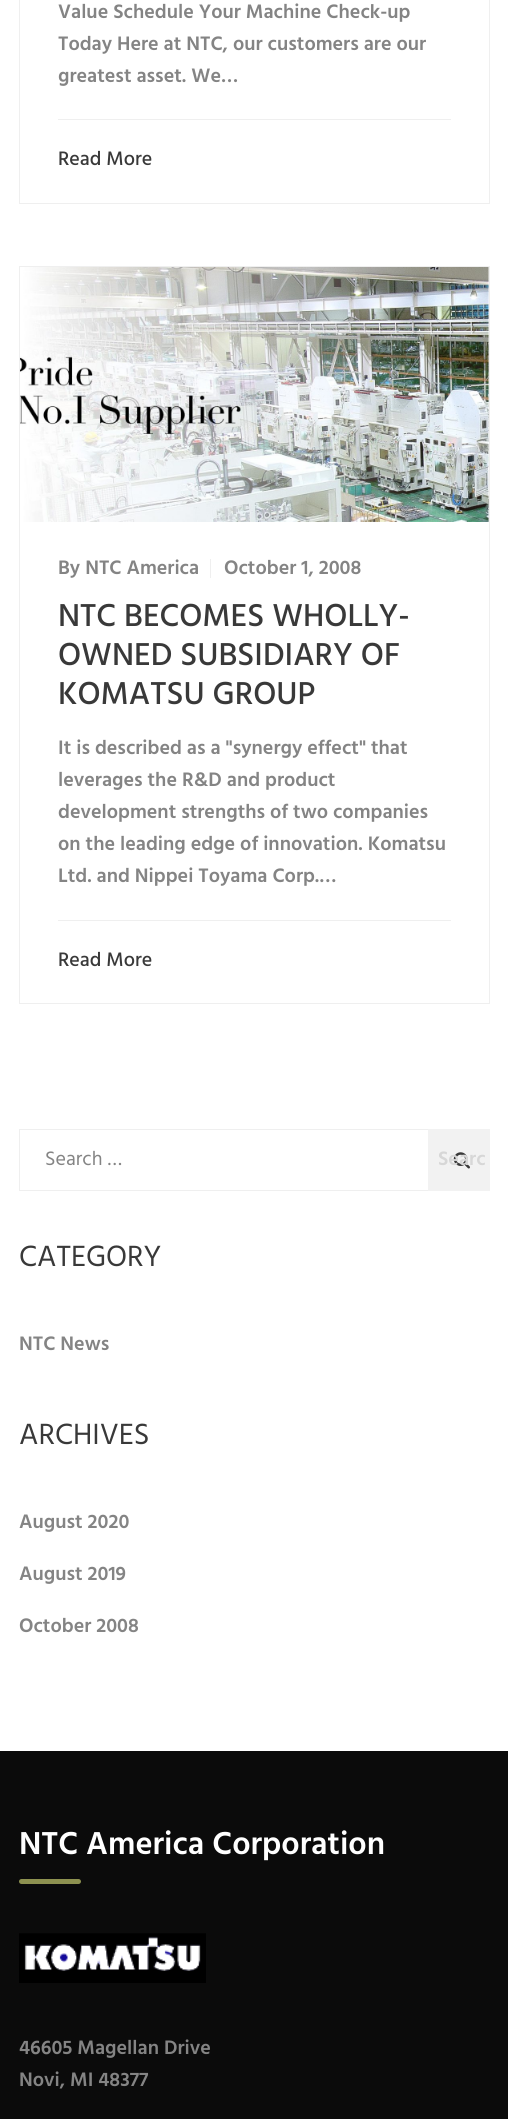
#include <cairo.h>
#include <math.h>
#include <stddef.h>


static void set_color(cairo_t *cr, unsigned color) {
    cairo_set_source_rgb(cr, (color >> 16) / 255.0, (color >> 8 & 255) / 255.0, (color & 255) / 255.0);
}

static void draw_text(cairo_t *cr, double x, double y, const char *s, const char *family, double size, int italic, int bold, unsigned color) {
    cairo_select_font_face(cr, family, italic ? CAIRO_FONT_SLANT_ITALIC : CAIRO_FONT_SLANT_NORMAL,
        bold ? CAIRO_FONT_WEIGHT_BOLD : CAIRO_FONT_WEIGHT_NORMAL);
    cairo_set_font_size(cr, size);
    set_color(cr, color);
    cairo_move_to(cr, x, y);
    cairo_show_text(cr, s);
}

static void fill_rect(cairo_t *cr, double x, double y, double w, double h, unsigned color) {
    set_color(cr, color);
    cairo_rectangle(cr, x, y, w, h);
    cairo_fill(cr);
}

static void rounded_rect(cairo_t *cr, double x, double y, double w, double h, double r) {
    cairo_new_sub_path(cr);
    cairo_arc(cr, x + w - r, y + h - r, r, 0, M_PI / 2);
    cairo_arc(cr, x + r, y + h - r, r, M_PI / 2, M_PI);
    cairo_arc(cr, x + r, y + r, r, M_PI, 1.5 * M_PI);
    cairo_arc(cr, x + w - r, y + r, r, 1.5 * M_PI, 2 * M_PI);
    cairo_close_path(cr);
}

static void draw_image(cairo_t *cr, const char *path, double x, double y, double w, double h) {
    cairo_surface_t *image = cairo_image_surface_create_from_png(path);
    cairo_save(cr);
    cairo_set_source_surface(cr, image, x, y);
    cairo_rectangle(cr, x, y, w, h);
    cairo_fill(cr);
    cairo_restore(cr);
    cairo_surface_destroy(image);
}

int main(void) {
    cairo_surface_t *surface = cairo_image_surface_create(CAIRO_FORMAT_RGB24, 508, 2119);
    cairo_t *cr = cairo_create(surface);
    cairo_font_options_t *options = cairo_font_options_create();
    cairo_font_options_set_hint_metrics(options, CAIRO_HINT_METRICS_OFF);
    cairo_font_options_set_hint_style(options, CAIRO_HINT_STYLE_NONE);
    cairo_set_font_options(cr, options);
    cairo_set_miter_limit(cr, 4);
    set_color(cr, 0xFFFFFF);
    cairo_paint(cr);
    cairo_rectangle(cr, 19.5, -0.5, 470, 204);
    set_color(cr, 0xEFEFEF);
    cairo_set_line_width(cr, 1);
    cairo_stroke(cr);
    draw_text(cr, 58, 18, "Value Schedule Your Machine Check-up", "Hind SemiBold", 20, 0, 0, 0x848484);
    draw_text(cr, 58, 50, "Today Here at NTC, our customers are our", "Hind SemiBold", 20, 0, 0, 0x848484);
    draw_text(cr, 58, 82, "greatest asset. We…", "Hind SemiBold", 20, 0, 0, 0x848484);
    fill_rect(cr, 58, 119, 393, 1, 0xEFEFEF);
    draw_text(cr, 58, 165, "Read More", "Hind Medium", 20, 0, 0, 0x393939);
    cairo_rectangle(cr, 19.5, 266.5, 470, 737);
    set_color(cr, 0xEFEFEF);
    cairo_stroke(cr);
    draw_image(cr, "assets/img1.png", 20, 267, 469, 255);
    draw_text(cr, 58, 574, "By NTC America", "Hind SemiBold", 20, 0, 0, 0x848484);
    fill_rect(cr, 210, 559, 1, 19, 0xEFEFEF);
    draw_text(cr, 224, 574, "October 1, 2008", "Hind SemiBold", 20, 0, 0, 0x848484);
    draw_text(cr, 58, 626, "NTC BECOMES WHOLLY-", "Hind Medium", 32.5, 0, 0, 0x393939);
    draw_text(cr, 58, 665, "OWNED SUBSIDIARY OF", "Hind Medium", 32.5, 0, 0, 0x393939);
    draw_text(cr, 58, 704, "KOMATSU GROUP", "Hind Medium", 32.5, 0, 0, 0x393939);
    draw_text(cr, 58, 754, "It is described as a \"synergy effect\" that", "Hind SemiBold", 20, 0, 0, 0x848484);
    draw_text(cr, 58, 786, "leverages the R&D and product", "Hind SemiBold", 20, 0, 0, 0x848484);
    draw_text(cr, 58, 818, "development strengths of two companies", "Hind SemiBold", 20, 0, 0, 0x848484);
    draw_text(cr, 58, 850, "on the leading edge of innovation. Komatsu", "Hind SemiBold", 20, 0, 0, 0x848484);
    draw_text(cr, 58, 882, "Ltd. and Nippei Toyama Corp.…", "Hind SemiBold", 20, 0, 0, 0x848484);
    fill_rect(cr, 58, 920, 393, 1, 0xEFEFEF);
    draw_text(cr, 58, 966, "Read More", "Hind Medium", 20, 0, 0, 0x393939);
    fill_rect(cr, 19, 1129, 409, 1, 0xEFEFEF);
    fill_rect(cr, 19, 1190, 409, 1, 0xEFEFEF);
    fill_rect(cr, 19, 1129, 1, 62, 0xEFEFEF);
    draw_text(cr, 45, 1165, "Search …", "Hind", 20, 0, 0, 0x848484);
    fill_rect(cr, 428, 1129, 62, 62, 0xF2F2F2);
    draw_image(cr, "assets/img2.png", 453, 1152, 17, 17);
    draw_text(cr, 438, 1165, "Searc", "Hind SemiBold", 20, 0, 0, 0xD7D7D7);
    draw_text(cr, 19, 1266, "CATEGORY", "Hind", 30, 0, 0, 0x393939);
    draw_text(cr, 19, 1350, "NTC News", "Hind SemiBold", 20, 0, 0, 0x848484);
    draw_text(cr, 19, 1444, "ARCHIVES", "Hind", 30, 0, 0, 0x393939);
    draw_text(cr, 19, 1528, "August 2020", "Hind SemiBold", 20, 0, 0, 0x848484);
    draw_text(cr, 19, 1580, "August 2019", "Hind SemiBold", 20, 0, 0, 0x848484);
    draw_text(cr, 19, 1632, "October 2008", "Hind SemiBold", 20, 0, 0, 0x848484);
    fill_rect(cr, 0, 1751, 508, 368, 0x0B0B0B);
    draw_text(cr, 19, 1854, "NTC America Corporation", "Hind SemiBold", 32.5, 0, 0, 0xFFFFFF);
    set_color(cr, 0x8D9150);
    rounded_rect(cr, 19, 1879, 62, 5, 2.5);
    cairo_fill(cr);
    draw_image(cr, "assets/img3.png", 19, 1933, 187, 50);
    draw_text(cr, 19, 2054, "46605 Magellan Drive", "Hind SemiBold", 20, 0, 0, 0x848484);
    draw_text(cr, 19, 2086, "Novi, MI 48377", "Hind SemiBold", 20, 0, 0, 0x848484);
    cairo_surface_write_to_png(surface, "output.png");
    cairo_font_options_destroy(options);
    cairo_destroy(cr);
    cairo_surface_destroy(surface);
    return 0;
}
